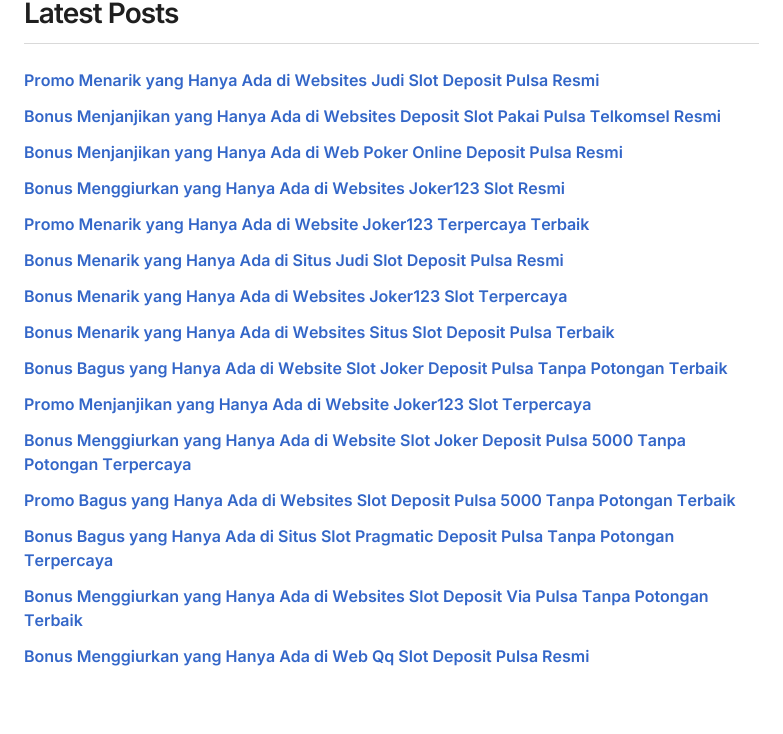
#include <cairo.h>
#include <math.h>
#include <stddef.h>


static void set_color(cairo_t *cr, unsigned color) {
    cairo_set_source_rgb(cr, (color >> 16) / 255.0, (color >> 8 & 255) / 255.0, (color & 255) / 255.0);
}

static void draw_text(cairo_t *cr, double x, double y, const char *s, const char *family, double size, int italic, int bold, unsigned color) {
    cairo_select_font_face(cr, family, italic ? CAIRO_FONT_SLANT_ITALIC : CAIRO_FONT_SLANT_NORMAL,
        bold ? CAIRO_FONT_WEIGHT_BOLD : CAIRO_FONT_WEIGHT_NORMAL);
    cairo_set_font_size(cr, size);
    set_color(cr, color);
    cairo_move_to(cr, x, y);
    cairo_show_text(cr, s);
}

static void draw_spaced(cairo_t *cr, double x, double y, const char *s, double letter, double word) {
    cairo_move_to(cr, x, y);
    while (*s) {
        char ch[5] = {0};
        int n = 0;
        do ch[n++] = *s++; while ((*s & 0xC0) == 0x80);
        cairo_show_text(cr, ch);
        cairo_rel_move_to(cr, letter + word * (*ch == ' '), 0);
    }
}

static void fill_rect(cairo_t *cr, double x, double y, double w, double h, unsigned color) {
    set_color(cr, color);
    cairo_rectangle(cr, x, y, w, h);
    cairo_fill(cr);
}

int main(void) {
    cairo_surface_t *surface = cairo_image_surface_create(CAIRO_FORMAT_RGB24, 783, 734);
    cairo_t *cr = cairo_create(surface);
    cairo_font_options_t *options = cairo_font_options_create();
    cairo_font_options_set_hint_metrics(options, CAIRO_HINT_METRICS_OFF);
    cairo_font_options_set_hint_style(options, CAIRO_HINT_STYLE_NONE);
    cairo_set_font_options(cr, options);
    cairo_set_miter_limit(cr, 4);
    set_color(cr, 0xFFFFFF);
    cairo_paint(cr);
    fill_rect(cr, 24, 43, 735, 1, 0xD9D9D9);
    cairo_select_font_face(cr, "Inter SemiBold", CAIRO_FONT_SLANT_NORMAL, CAIRO_FONT_WEIGHT_NORMAL);
    cairo_set_font_size(cr, 28);
    set_color(cr, 0x1F1F1F);
    draw_spaced(cr, 24, 23, "Latest Posts", -1, 0);
    draw_text(cr, 24, 86, "Promo Menarik yang Hanya Ada di Websites Judi Slot Deposit Pulsa Resmi", "Inter SemiBold", 16, 0, 0, 0x3366C8);
    draw_text(cr, 24, 122, "Bonus Menjanjikan yang Hanya Ada di Websites Deposit Slot Pakai Pulsa Telkomsel Resmi", "Inter SemiBold", 16, 0, 0, 0x3366C8);
    draw_text(cr, 24, 158, "Bonus Menjanjikan yang Hanya Ada di Web Poker Online Deposit Pulsa Resmi", "Inter SemiBold", 16, 0, 0, 0x3366C8);
    draw_text(cr, 24, 194, "Bonus Menggiurkan yang Hanya Ada di Websites Joker123 Slot Resmi", "Inter SemiBold", 16, 0, 0, 0x3366C8);
    draw_text(cr, 24, 230, "Promo Menarik yang Hanya Ada di Website Joker123 Terpercaya Terbaik", "Inter SemiBold", 16, 0, 0, 0x3366C8);
    draw_text(cr, 24, 266, "Bonus Menarik yang Hanya Ada di Situs Judi Slot Deposit Pulsa Resmi", "Inter SemiBold", 16, 0, 0, 0x3366C8);
    draw_text(cr, 24, 302, "Bonus Menarik yang Hanya Ada di Websites Joker123 Slot Terpercaya", "Inter SemiBold", 16, 0, 0, 0x3366C8);
    draw_text(cr, 24, 338, "Bonus Menarik yang Hanya Ada di Websites Situs Slot Deposit Pulsa Terbaik", "Inter SemiBold", 16, 0, 0, 0x3366C8);
    draw_text(cr, 24, 374, "Bonus Bagus yang Hanya Ada di Website Slot Joker Deposit Pulsa Tanpa Potongan Terbaik", "Inter SemiBold", 16, 0, 0, 0x3366C8);
    draw_text(cr, 24, 410, "Promo Menjanjikan yang Hanya Ada di Website Joker123 Slot Terpercaya", "Inter SemiBold", 16, 0, 0, 0x3366C8);
    draw_text(cr, 24, 446, "Bonus Menggiurkan yang Hanya Ada di Website Slot Joker Deposit Pulsa 5000 Tanpa", "Inter SemiBold", 16, 0, 0, 0x3366C8);
    draw_text(cr, 24, 470, "Potongan Terpercaya", "Inter SemiBold", 16, 0, 0, 0x3366C8);
    draw_text(cr, 24, 506, "Promo Bagus yang Hanya Ada di Websites Slot Deposit Pulsa 5000 Tanpa Potongan Terbaik", "Inter SemiBold", 16, 0, 0, 0x3366C8);
    draw_text(cr, 24, 542, "Bonus Bagus yang Hanya Ada di Situs Slot Pragmatic Deposit Pulsa Tanpa Potongan", "Inter SemiBold", 16, 0, 0, 0x3366C8);
    draw_text(cr, 24, 566, "Terpercaya", "Inter SemiBold", 16, 0, 0, 0x3366C8);
    draw_text(cr, 24, 602, "Bonus Menggiurkan yang Hanya Ada di Websites Slot Deposit Via Pulsa Tanpa Potongan", "Inter SemiBold", 16, 0, 0, 0x3366C8);
    draw_text(cr, 24, 626, "Terbaik", "Inter SemiBold", 16, 0, 0, 0x3366C8);
    draw_text(cr, 24, 662, "Bonus Menggiurkan yang Hanya Ada di Web Qq Slot Deposit Pulsa Resmi", "Inter SemiBold", 16, 0, 0, 0x3366C8);
    cairo_surface_write_to_png(surface, "output.png");
    cairo_font_options_destroy(options);
    cairo_destroy(cr);
    cairo_surface_destroy(surface);
    return 0;
}
